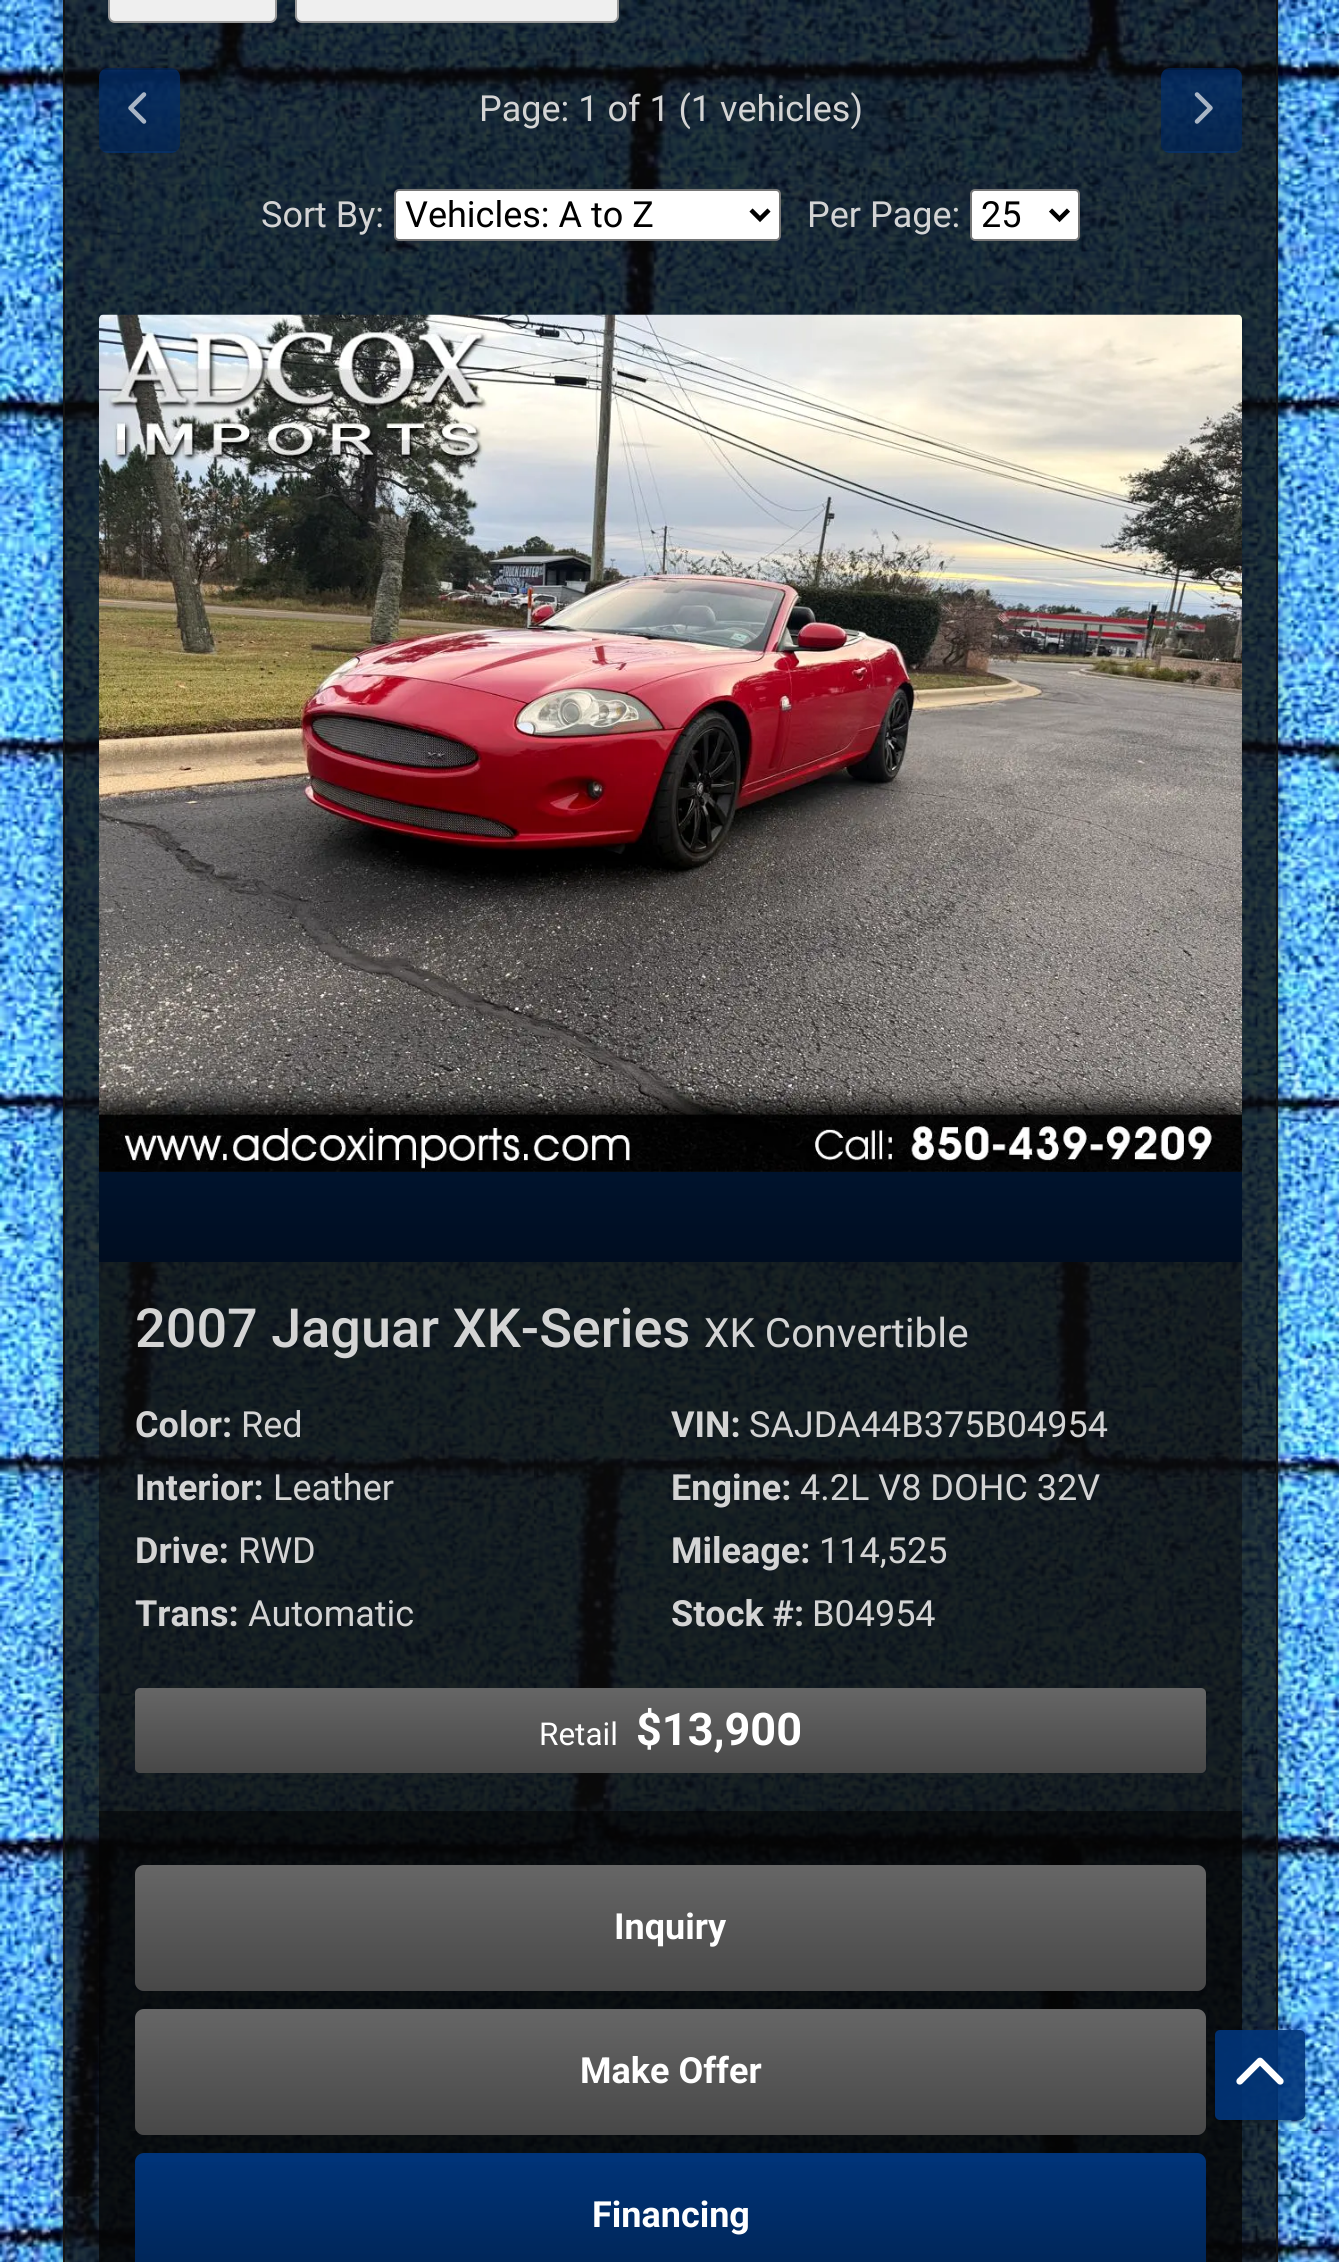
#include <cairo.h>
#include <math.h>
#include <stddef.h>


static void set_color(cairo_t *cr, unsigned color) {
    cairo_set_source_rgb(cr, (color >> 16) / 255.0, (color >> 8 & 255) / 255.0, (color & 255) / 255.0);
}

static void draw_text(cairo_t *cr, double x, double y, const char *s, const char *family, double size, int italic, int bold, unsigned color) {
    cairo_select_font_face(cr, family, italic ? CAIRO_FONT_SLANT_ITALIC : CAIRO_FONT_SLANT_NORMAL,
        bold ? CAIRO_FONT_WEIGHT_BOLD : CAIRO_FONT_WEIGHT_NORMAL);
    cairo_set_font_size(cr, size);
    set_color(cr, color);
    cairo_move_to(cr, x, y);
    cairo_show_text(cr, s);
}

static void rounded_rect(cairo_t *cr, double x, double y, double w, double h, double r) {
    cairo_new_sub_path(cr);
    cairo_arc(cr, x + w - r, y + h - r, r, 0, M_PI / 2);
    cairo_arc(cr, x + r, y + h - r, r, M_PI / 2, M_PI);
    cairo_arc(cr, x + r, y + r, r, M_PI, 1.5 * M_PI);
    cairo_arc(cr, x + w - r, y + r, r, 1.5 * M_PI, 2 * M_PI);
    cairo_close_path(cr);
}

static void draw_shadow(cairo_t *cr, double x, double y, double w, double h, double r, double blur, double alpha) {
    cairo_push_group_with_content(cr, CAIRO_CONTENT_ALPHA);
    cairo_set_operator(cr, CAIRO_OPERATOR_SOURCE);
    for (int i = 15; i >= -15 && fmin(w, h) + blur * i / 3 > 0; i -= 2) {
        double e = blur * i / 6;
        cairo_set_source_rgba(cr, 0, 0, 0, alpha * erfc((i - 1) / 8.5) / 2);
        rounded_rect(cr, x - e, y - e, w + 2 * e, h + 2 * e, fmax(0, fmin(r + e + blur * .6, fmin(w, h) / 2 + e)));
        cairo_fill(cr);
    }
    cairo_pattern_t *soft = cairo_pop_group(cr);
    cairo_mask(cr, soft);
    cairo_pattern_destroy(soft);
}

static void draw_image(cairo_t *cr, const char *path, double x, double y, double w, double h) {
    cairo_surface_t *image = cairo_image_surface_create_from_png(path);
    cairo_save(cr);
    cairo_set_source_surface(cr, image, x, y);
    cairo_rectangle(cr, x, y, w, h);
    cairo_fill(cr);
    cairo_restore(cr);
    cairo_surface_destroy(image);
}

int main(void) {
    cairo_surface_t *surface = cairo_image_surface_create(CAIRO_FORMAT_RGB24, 1339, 2262);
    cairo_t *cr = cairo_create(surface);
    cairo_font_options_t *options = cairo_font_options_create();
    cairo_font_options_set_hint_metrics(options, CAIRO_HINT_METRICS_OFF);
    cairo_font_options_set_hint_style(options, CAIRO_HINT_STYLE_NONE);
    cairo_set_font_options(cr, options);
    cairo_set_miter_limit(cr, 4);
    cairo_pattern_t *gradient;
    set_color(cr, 0xFFFFFF);
    cairo_paint(cr);
    draw_image(cr, "assets/img1.png", 0, 0, 1339, 2262);
    cairo_save(cr);
    cairo_set_fill_rule(cr, CAIRO_FILL_RULE_EVEN_ODD);
    cairo_new_path(cr);
    cairo_move_to(cr, 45, 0);
    cairo_line_to(cr, 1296, 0);
    cairo_line_to(cr, 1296, 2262);
    cairo_line_to(cr, 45, 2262);
    cairo_close_path(cr);
    cairo_move_to(cr, 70, -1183);
    cairo_line_to(cr, 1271, -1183);
    cairo_curve_to(cr, 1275, -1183, 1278, -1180, 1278, -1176);
    cairo_line_to(cr, 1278, 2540);
    cairo_curve_to(cr, 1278, 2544, 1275, 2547, 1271, 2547);
    cairo_line_to(cr, 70, 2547);
    cairo_curve_to(cr, 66, 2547, 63, 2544, 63, 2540);
    cairo_line_to(cr, 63, -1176);
    cairo_curve_to(cr, 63, -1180, 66, -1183, 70, -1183);
    cairo_close_path(cr);
    cairo_clip(cr);
    set_color(cr, 0x000000);
    draw_shadow(cr, 63, -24, 1215, 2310, 7, 5.5, 0.1);
    cairo_restore(cr);
    cairo_save(cr);
    cairo_set_fill_rule(cr, CAIRO_FILL_RULE_EVEN_ODD);
    cairo_new_path(cr);
    cairo_move_to(cr, 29, 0);
    cairo_line_to(cr, 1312, 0);
    cairo_line_to(cr, 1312, 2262);
    cairo_line_to(cr, 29, 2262);
    cairo_close_path(cr);
    cairo_move_to(cr, 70, -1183);
    cairo_line_to(cr, 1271, -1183);
    cairo_curve_to(cr, 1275, -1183, 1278, -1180, 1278, -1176);
    cairo_line_to(cr, 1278, 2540);
    cairo_curve_to(cr, 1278, 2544, 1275, 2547, 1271, 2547);
    cairo_line_to(cr, 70, 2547);
    cairo_curve_to(cr, 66, 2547, 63, 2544, 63, 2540);
    cairo_line_to(cr, 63, -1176);
    cairo_curve_to(cr, 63, -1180, 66, -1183, 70, -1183);
    cairo_close_path(cr);
    cairo_clip(cr);
    set_color(cr, 0x000000);
    draw_shadow(cr, 63, -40, 1215, 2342, 7, 11, 0.2);
    cairo_restore(cr);
    cairo_rectangle(cr, 64, -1, 1213, 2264);
    set_color(cr, 0x141414);
    cairo_stroke(cr);
    set_color(cr, 0xEFEFEF);
    rounded_rect(cr, 109, -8, 167, 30, 6);
    cairo_fill_preserve(cr);
    set_color(cr, 0x999999);
    cairo_stroke(cr);
    set_color(cr, 0xEFEFEF);
    rounded_rect(cr, 296, -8, 322, 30, 6);
    cairo_fill_preserve(cr);
    set_color(cr, 0x999999);
    cairo_stroke(cr);
    cairo_set_source_rgba(cr, 0, 0.204, 0.475, 0.65);
    rounded_rect(cr, 99, 68, 81, 85, 9);
    cairo_fill(cr);
    cairo_save(cr);
    rounded_rect(cr, 99, 68, 81, 85, 9);
    cairo_clip(cr);
    gradient = cairo_pattern_create_linear(140, -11, 140, 70);
    cairo_pattern_add_color_stop_rgba(gradient, 0, 0, 0, 0, 0);
    cairo_pattern_add_color_stop_rgba(gradient, 1, 0, 0, 0, 0.2);
    cairo_set_source(cr, gradient);
    cairo_pattern_destroy(gradient);
    cairo_rectangle(cr, 99, 68, 81, 2);
    cairo_fill(cr);
    gradient = cairo_pattern_create_linear(140, 70, 140, 151);
    cairo_pattern_add_color_stop_rgba(gradient, 0, 0, 0, 0, 0);
    cairo_pattern_add_color_stop_rgba(gradient, 1, 0, 0, 0, 0.2);
    cairo_set_source(cr, gradient);
    cairo_pattern_destroy(gradient);
    cairo_rectangle(cr, 99, 79, 81, 72);
    cairo_fill(cr);
    cairo_restore(cr);
    draw_image(cr, "assets/img2.png", 128, 92, 19, 32);
    draw_text(cr, 479, 121, "Page: 1 of 1 (1 vehicles)", "Roboto", 36, 0, 0, 0xD4D4D4);
    cairo_set_source_rgba(cr, 0, 0.204, 0.475, 0.65);
    rounded_rect(cr, 1161, 68, 81, 85, 9);
    cairo_fill(cr);
    cairo_save(cr);
    rounded_rect(cr, 1161, 68, 81, 85, 9);
    cairo_clip(cr);
    gradient = cairo_pattern_create_linear(1202, -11, 1202, 70);
    cairo_pattern_add_color_stop_rgba(gradient, 0, 0, 0, 0, 0);
    cairo_pattern_add_color_stop_rgba(gradient, 1, 0, 0, 0, 0.2);
    cairo_set_source(cr, gradient);
    cairo_pattern_destroy(gradient);
    cairo_rectangle(cr, 1161, 68, 81, 2);
    cairo_fill(cr);
    gradient = cairo_pattern_create_linear(1202, 70, 1202, 151);
    cairo_pattern_add_color_stop_rgba(gradient, 0, 0, 0, 0, 0);
    cairo_pattern_add_color_stop_rgba(gradient, 1, 0, 0, 0, 0.2);
    cairo_set_source(cr, gradient);
    cairo_pattern_destroy(gradient);
    cairo_rectangle(cr, 1161, 79, 81, 72);
    cairo_fill(cr);
    cairo_restore(cr);
    draw_image(cr, "assets/img3.png", 1194, 92, 19, 32);
    draw_text(cr, 261, 227, "Sort By:", "Roboto", 36, 0, 0, 0xD4D4D4);
    set_color(cr, 0xFFFFFF);
    rounded_rect(cr, 395, 190, 385, 50, 4);
    cairo_fill_preserve(cr);
    set_color(cr, 0x767676);
    cairo_stroke(cr);
    cairo_new_path(cr);
    cairo_move_to(cr, 751, 210);
    cairo_line_to(cr, 760, 219);
    cairo_line_to(cr, 769, 210);
    set_color(cr, 0x000000);
    cairo_set_line_width(cr, 4.5);
    cairo_stroke(cr);
    draw_text(cr, 405, 227, "Vehicles: A to Z", "Roboto", 36, 0, 0, 0x000000);
    draw_text(cr, 807, 227, "Per Page:", "Roboto", 36, 0, 0, 0xD4D4D4);
    set_color(cr, 0xFFFFFF);
    rounded_rect(cr, 971, 190, 108, 50, 4);
    cairo_fill_preserve(cr);
    set_color(cr, 0x767676);
    cairo_set_line_width(cr, 2);
    cairo_stroke(cr);
    cairo_new_path(cr);
    cairo_move_to(cr, 1050.5, 210);
    cairo_line_to(cr, 1059.5, 219);
    cairo_line_to(cr, 1068.5, 210);
    set_color(cr, 0x000000);
    cairo_set_line_width(cr, 4.5);
    cairo_stroke(cr);
    draw_text(cr, 981, 227, "25", "Roboto", 36, 0, 0, 0x000000);
    cairo_set_source_rgba(cr, 0.051, 0.051, 0.051, 0.5);
    rounded_rect(cr, 99, 315, 1143, 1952, 5);
    cairo_fill(cr);
    draw_image(cr, "assets/img4.png", 99, 314, 1143, 858);
    gradient = cairo_pattern_create_linear(671, 1172, 671, 1262);
    cairo_pattern_add_color_stop_rgba(gradient, 0, 0, 0.075, 0.176, 1);
    cairo_pattern_add_color_stop_rgba(gradient, 1, 0, 0.051, 0.125, 1);
    cairo_set_source(cr, gradient);
    cairo_pattern_destroy(gradient);
    cairo_rectangle(cr, 99, 1172, 1143, 90);
    cairo_fill(cr);
    draw_text(cr, 135, 1347, "2007 Jaguar XK-Series", "Roboto Medium", 54, 0, 0, 0xD4D4D4);
    draw_text(cr, 704, 1347, "XK Convertible", "Roboto", 40.5, 0, 0, 0xD4D4D4);
    draw_text(cr, 135, 1437, "Color:", "Roboto", 36, 0, 1, 0xD4D4D4);
    draw_text(cr, 241, 1437, "Red", "Roboto", 36, 0, 0, 0xD4D4D4);
    draw_text(cr, 135, 1500, "Interior:", "Roboto", 36, 0, 1, 0xD4D4D4);
    draw_text(cr, 273, 1500, "Leather", "Roboto", 36, 0, 0, 0xD4D4D4);
    draw_text(cr, 135, 1563, "Drive:", "Roboto", 36, 0, 1, 0xD4D4D4);
    draw_text(cr, 238, 1563, "RWD", "Roboto", 36, 0, 0, 0xD4D4D4);
    draw_text(cr, 135, 1626, "Trans:", "Roboto", 36, 0, 1, 0xD4D4D4);
    draw_text(cr, 248, 1626, "Automatic", "Roboto", 36, 0, 0, 0xD4D4D4);
    draw_text(cr, 671, 1437, "VIN:", "Roboto", 36, 0, 1, 0xD4D4D4);
    draw_text(cr, 749, 1437, "SAJDA44B375B04954", "Roboto", 36, 0, 0, 0xD4D4D4);
    draw_text(cr, 671, 1500, "Engine:", "Roboto", 36, 0, 1, 0xD4D4D4);
    draw_text(cr, 800, 1500, "4.2L V8 DOHC 32V", "Roboto", 36, 0, 0, 0xD4D4D4);
    draw_text(cr, 671, 1563, "Mileage:", "Roboto", 36, 0, 1, 0xD4D4D4);
    draw_text(cr, 819, 1563, "114,525", "Roboto", 36, 0, 0, 0xD4D4D4);
    draw_text(cr, 671, 1626, "Stock #:", "Roboto", 36, 0, 1, 0xD4D4D4);
    draw_text(cr, 812, 1626, "B04954", "Roboto", 36, 0, 0, 0xD4D4D4);
    set_color(cr, 0x666666);
    rounded_rect(cr, 135, 1688, 1071, 85, 5);
    cairo_fill(cr);
    gradient = cairo_pattern_create_linear(671, 1688, 671, 1773);
    cairo_pattern_add_color_stop_rgba(gradient, 0, 0, 0, 0, 0);
    cairo_pattern_add_color_stop_rgba(gradient, 1, 0, 0, 0, 0.3);
    cairo_set_source(cr, gradient);
    cairo_pattern_destroy(gradient);
    rounded_rect(cr, 135, 1688, 1071, 85, 5);
    cairo_fill(cr);
    draw_text(cr, 539, 1745, "Retail", "Roboto", 31.5, 0, 0, 0xFFFFFF);
    draw_text(cr, 636, 1745, "$13,900", "Roboto", 45, 0, 1, 0xFFFFFF);
    cairo_set_source_rgba(cr, 0, 0, 0, 0.5);
    cairo_rectangle(cr, 99, 1811, 1143, 451);
    cairo_fill(cr);
    set_color(cr, 0x666666);
    rounded_rect(cr, 135, 1865, 1071, 126, 9);
    cairo_fill(cr);
    gradient = cairo_pattern_create_linear(671, 1865, 671, 1991);
    cairo_pattern_add_color_stop_rgba(gradient, 0, 0, 0, 0, 0);
    cairo_pattern_add_color_stop_rgba(gradient, 1, 0, 0, 0, 0.3);
    cairo_set_source(cr, gradient);
    cairo_pattern_destroy(gradient);
    rounded_rect(cr, 135, 1865, 1071, 126, 9);
    cairo_fill(cr);
    draw_text(cr, 614, 1939, "Inquiry", "Roboto", 36, 0, 1, 0xFFFFFF);
    set_color(cr, 0x666666);
    rounded_rect(cr, 135, 2009, 1071, 126, 9);
    cairo_fill(cr);
    gradient = cairo_pattern_create_linear(671, 2009, 671, 2135);
    cairo_pattern_add_color_stop_rgba(gradient, 0, 0, 0, 0, 0);
    cairo_pattern_add_color_stop_rgba(gradient, 1, 0, 0, 0, 0.3);
    cairo_set_source(cr, gradient);
    cairo_pattern_destroy(gradient);
    rounded_rect(cr, 135, 2009, 1071, 126, 9);
    cairo_fill(cr);
    draw_text(cr, 580, 2083, "Make Offer", "Roboto", 36, 0, 1, 0xFFFFFF);
    set_color(cr, 0x003479);
    rounded_rect(cr, 135, 2153, 1071, 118, 9);
    cairo_fill(cr);
    gradient = cairo_pattern_create_linear(671, 2153, 671, 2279);
    cairo_pattern_add_color_stop_rgba(gradient, 0, 0, 0, 0, 0);
    cairo_pattern_add_color_stop_rgba(gradient, 1, 0, 0, 0, 0.3);
    cairo_set_source(cr, gradient);
    cairo_pattern_destroy(gradient);
    cairo_rectangle(cr, 135, 2162, 1071, 100);
    cairo_fill(cr);
    draw_text(cr, 592, 2227, "Financing", "Roboto", 36, 0, 1, 0xFFFFFF);
    cairo_save(cr);
    cairo_set_fill_rule(cr, CAIRO_FILL_RULE_EVEN_ODD);
    cairo_new_path(cr);
    cairo_move_to(cr, 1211, 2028);
    cairo_line_to(cr, 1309, 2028);
    cairo_line_to(cr, 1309, 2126);
    cairo_line_to(cr, 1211, 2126);
    cairo_close_path(cr);
    cairo_move_to(cr, 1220, 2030);
    cairo_line_to(cr, 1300, 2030);
    cairo_curve_to(cr, 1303, 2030, 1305, 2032, 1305, 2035);
    cairo_line_to(cr, 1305, 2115);
    cairo_curve_to(cr, 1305, 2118, 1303, 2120, 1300, 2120);
    cairo_line_to(cr, 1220, 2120);
    cairo_curve_to(cr, 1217, 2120, 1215, 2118, 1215, 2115);
    cairo_line_to(cr, 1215, 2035);
    cairo_curve_to(cr, 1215, 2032, 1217, 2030, 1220, 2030);
    cairo_close_path(cr);
    cairo_clip(cr);
    set_color(cr, 0x000000);
    draw_shadow(cr, 1215, 2032, 90, 90, 5, 1, 0.2);
    cairo_restore(cr);
    cairo_save(cr);
    cairo_set_fill_rule(cr, CAIRO_FILL_RULE_EVEN_ODD);
    cairo_new_path(cr);
    cairo_move_to(cr, 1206, 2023);
    cairo_line_to(cr, 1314, 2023);
    cairo_line_to(cr, 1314, 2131);
    cairo_line_to(cr, 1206, 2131);
    cairo_close_path(cr);
    cairo_move_to(cr, 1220, 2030);
    cairo_line_to(cr, 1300, 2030);
    cairo_curve_to(cr, 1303, 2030, 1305, 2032, 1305, 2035);
    cairo_line_to(cr, 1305, 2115);
    cairo_curve_to(cr, 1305, 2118, 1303, 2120, 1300, 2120);
    cairo_line_to(cr, 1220, 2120);
    cairo_curve_to(cr, 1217, 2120, 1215, 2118, 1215, 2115);
    cairo_line_to(cr, 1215, 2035);
    cairo_curve_to(cr, 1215, 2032, 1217, 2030, 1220, 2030);
    cairo_close_path(cr);
    cairo_clip(cr);
    set_color(cr, 0x000000);
    draw_shadow(cr, 1213, 2030, 94, 94, 7, 2, 0.1);
    cairo_restore(cr);
    cairo_set_source_rgba(cr, 0, 0.204, 0.475, 0.9);
    rounded_rect(cr, 1215, 2030, 90, 90, 5);
    cairo_fill(cr);
    cairo_save(cr);
    rounded_rect(cr, 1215, 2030, 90, 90, 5);
    cairo_clip(cr);
    cairo_set_fill_rule(cr, CAIRO_FILL_RULE_EVEN_ODD);
    cairo_new_path(cr);
    cairo_move_to(cr, 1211, 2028);
    cairo_line_to(cr, 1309, 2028);
    cairo_line_to(cr, 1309, 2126);
    cairo_line_to(cr, 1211, 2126);
    cairo_close_path(cr);
    cairo_move_to(cr, 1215, 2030);
    cairo_line_to(cr, 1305, 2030);
    cairo_line_to(cr, 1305, 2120);
    cairo_line_to(cr, 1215, 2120);
    cairo_close_path(cr);
    cairo_clip(cr);
    set_color(cr, 0x000000);
    draw_shadow(cr, 1215, 2032, 90, 90, 0, 1, 0.2);
    cairo_restore(cr);
    draw_image(cr, "assets/img5.png", 1236, 2057, 48, 28);
    cairo_surface_write_to_png(surface, "output.png");
    cairo_font_options_destroy(options);
    cairo_destroy(cr);
    cairo_surface_destroy(surface);
    return 0;
}
